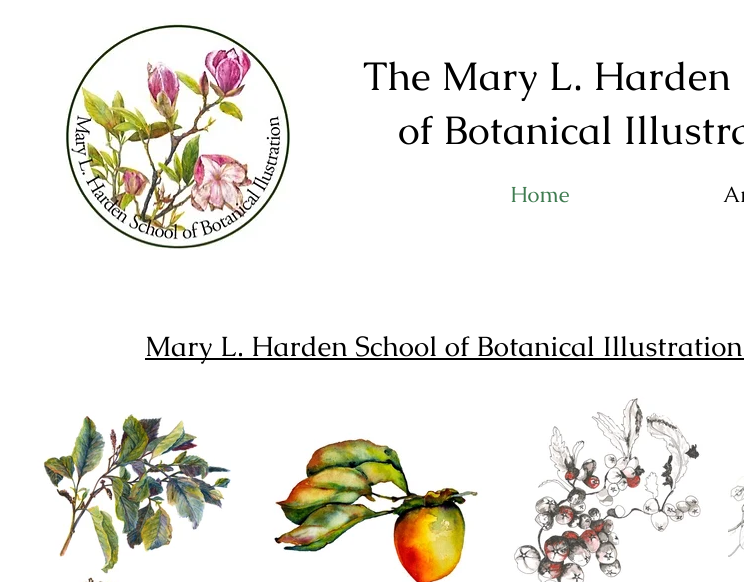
#include <cairo.h>
#include <math.h>
#include <stddef.h>


static void set_color(cairo_t *cr, unsigned color) {
    cairo_set_source_rgb(cr, (color >> 16) / 255.0, (color >> 8 & 255) / 255.0, (color & 255) / 255.0);
}

static void draw_text(cairo_t *cr, double x, double y, const char *s, const char *family, double size, int italic, int bold, unsigned color) {
    cairo_select_font_face(cr, family, italic ? CAIRO_FONT_SLANT_ITALIC : CAIRO_FONT_SLANT_NORMAL,
        bold ? CAIRO_FONT_WEIGHT_BOLD : CAIRO_FONT_WEIGHT_NORMAL);
    cairo_set_font_size(cr, size);
    set_color(cr, color);
    cairo_move_to(cr, x, y);
    cairo_show_text(cr, s);
}

static void fill_rect(cairo_t *cr, double x, double y, double w, double h, unsigned color) {
    set_color(cr, color);
    cairo_rectangle(cr, x, y, w, h);
    cairo_fill(cr);
}

static void draw_image(cairo_t *cr, const char *path, double x, double y, double w, double h) {
    cairo_surface_t *image = cairo_image_surface_create_from_png(path);
    cairo_save(cr);
    cairo_set_source_surface(cr, image, x, y);
    cairo_rectangle(cr, x, y, w, h);
    cairo_fill(cr);
    cairo_restore(cr);
    cairo_surface_destroy(image);
}

int main(void) {
    cairo_surface_t *surface = cairo_image_surface_create(CAIRO_FORMAT_RGB24, 744, 582);
    cairo_t *cr = cairo_create(surface);
    cairo_font_options_t *options = cairo_font_options_create();
    cairo_font_options_set_hint_metrics(options, CAIRO_HINT_METRICS_OFF);
    cairo_font_options_set_hint_style(options, CAIRO_HINT_STYLE_NONE);
    cairo_set_font_options(cr, options);
    cairo_set_miter_limit(cr, 4);
    set_color(cr, 0xFFFFFF);
    cairo_paint(cr);
    draw_image(cr, "assets/img1.png", 65, 18, 226, 232);
    draw_text(cr, 363, 90, "The Mary L. Harden", "Caudex", 40, 0, 0, 0x000000);
    draw_text(cr, 398, 144, "of Botanical Illustra", "Caudex", 40, 0, 0, 0x000000);
    draw_text(cr, 510, 202, "Home", "Caudex", 22, 0, 0, 0x407C51);
    draw_text(cr, 723, 202, "Ar", "Caudex", 22, 0, 0, 0x000000);
    fill_rect(cr, 145, 358, 599, 2, 0x000000);
    draw_text(cr, 145, 356, "Mary L. Harden School of Botanical Illustration", "Caudex", 28, 0, 0, 0x000000);
    draw_image(cr, "assets/img2.png", 23, 396, 229, 186);
    draw_image(cr, "assets/img3.png", 258, 417, 229, 165);
    draw_image(cr, "assets/img4.png", 511, 396, 193, 186);
    draw_image(cr, "assets/img5.png", 728, 416, 16, 166);
    cairo_surface_write_to_png(surface, "output.png");
    cairo_font_options_destroy(options);
    cairo_destroy(cr);
    cairo_surface_destroy(surface);
    return 0;
}
